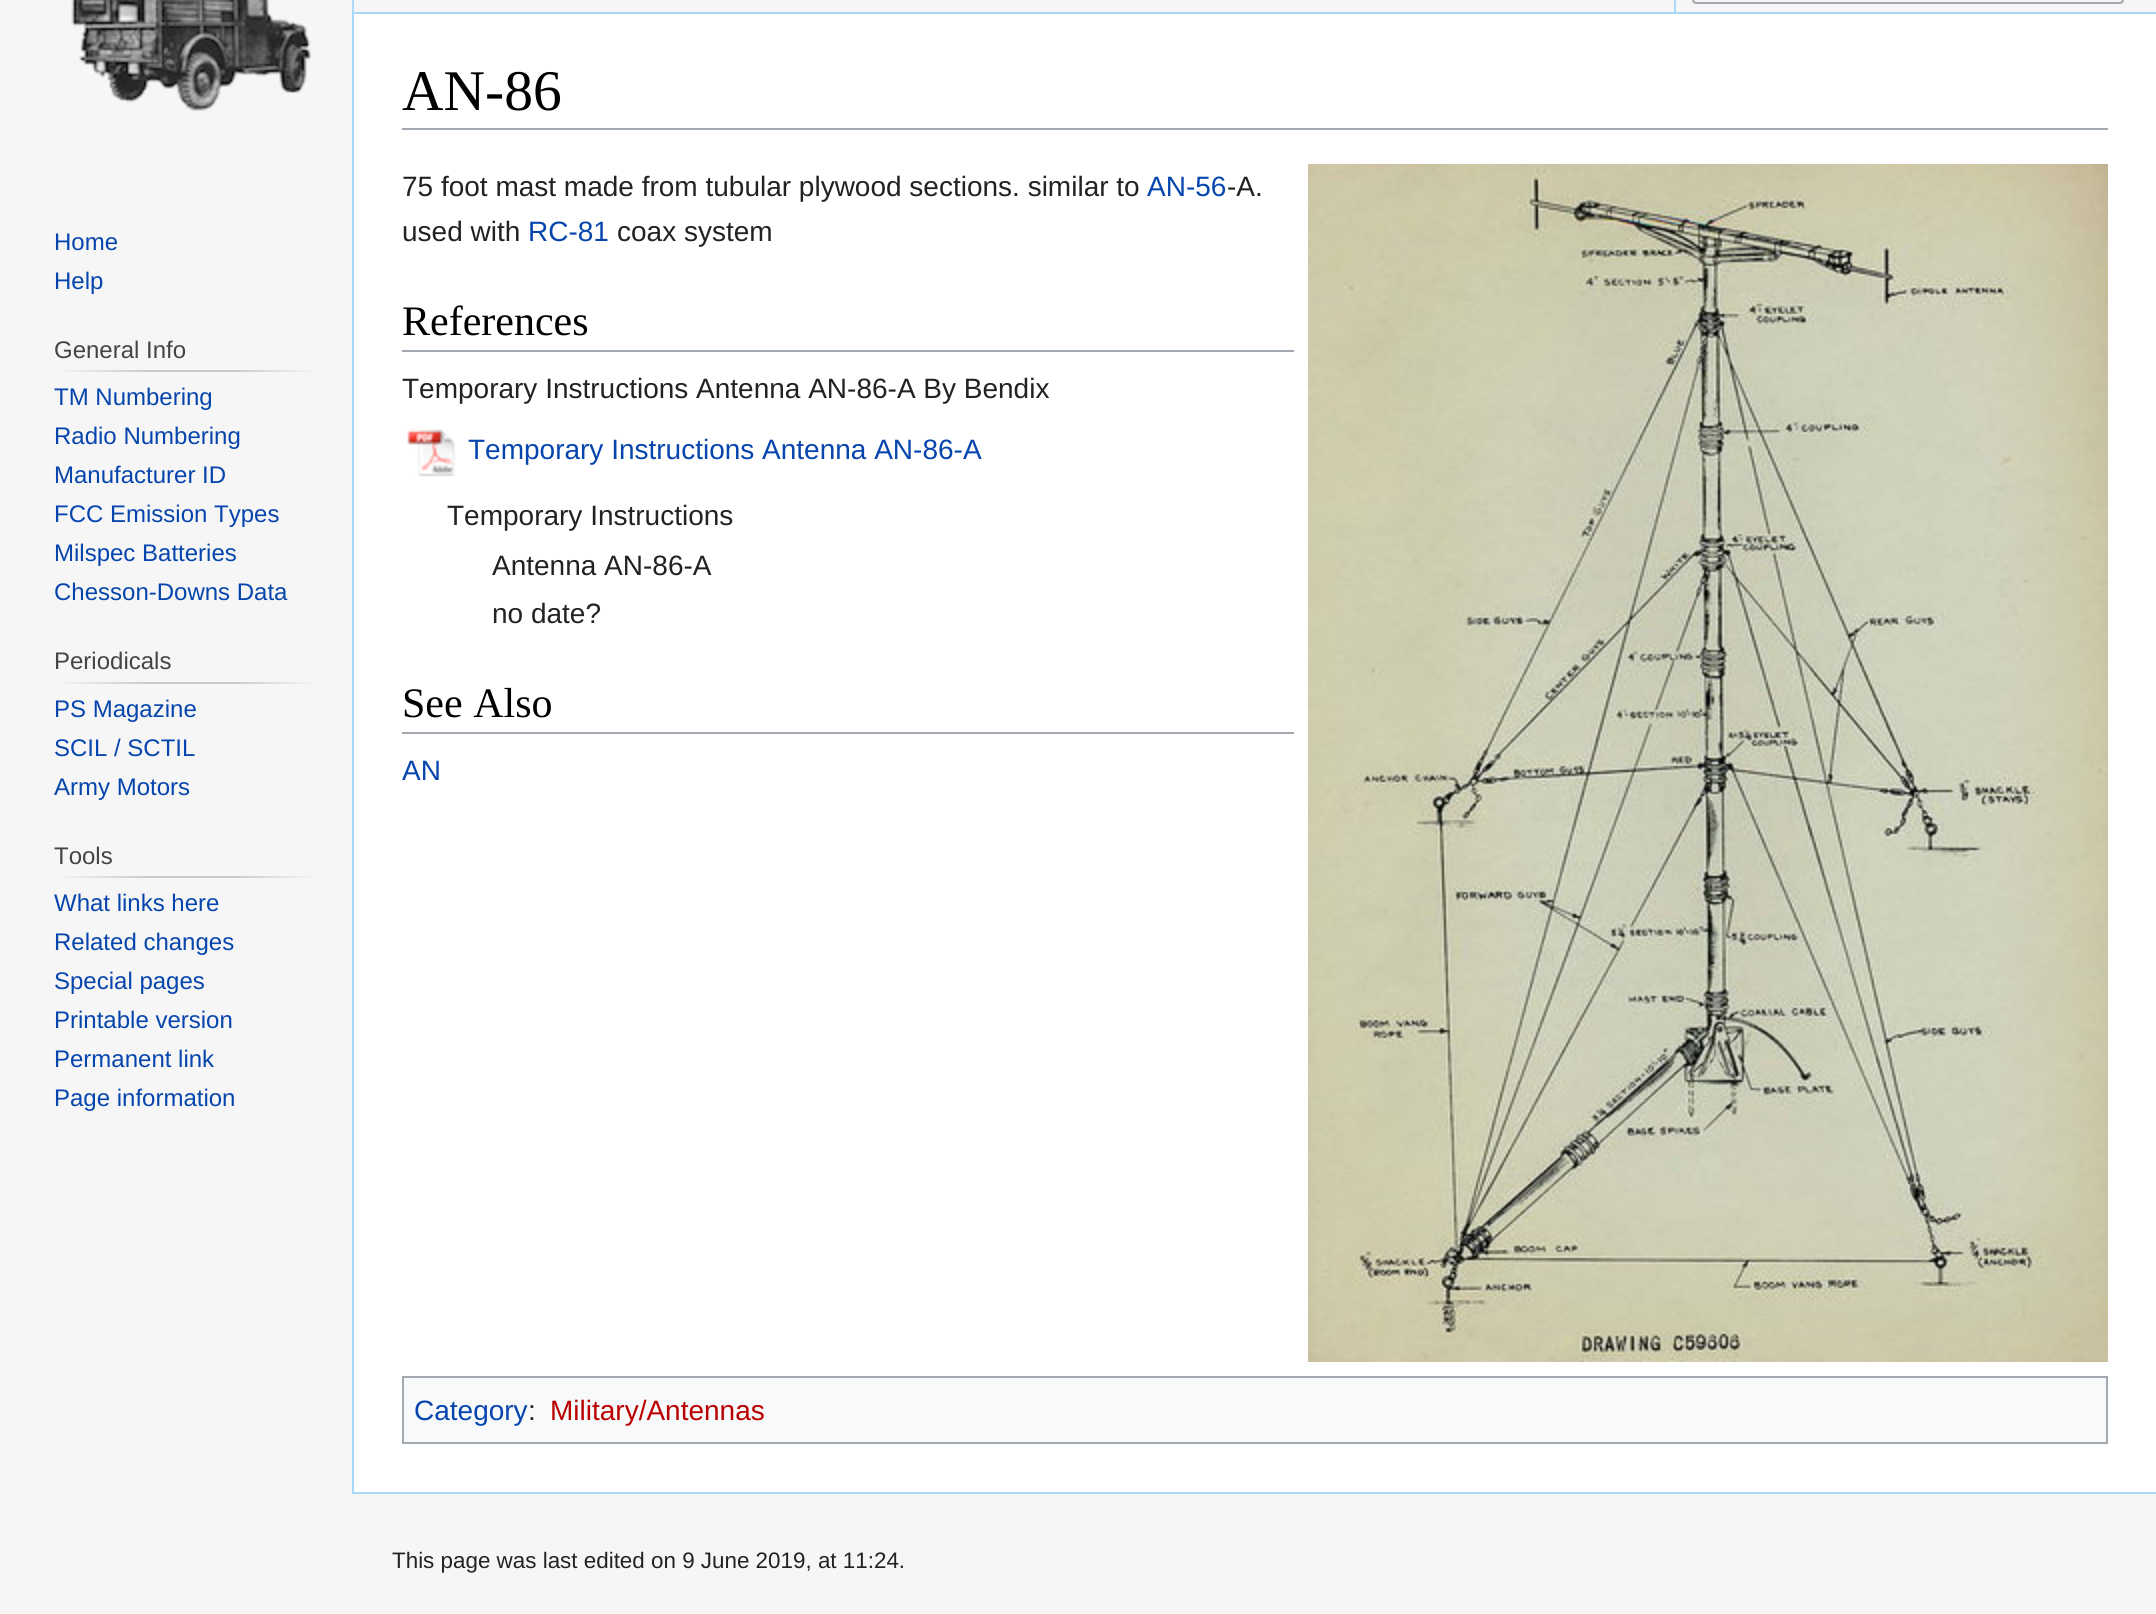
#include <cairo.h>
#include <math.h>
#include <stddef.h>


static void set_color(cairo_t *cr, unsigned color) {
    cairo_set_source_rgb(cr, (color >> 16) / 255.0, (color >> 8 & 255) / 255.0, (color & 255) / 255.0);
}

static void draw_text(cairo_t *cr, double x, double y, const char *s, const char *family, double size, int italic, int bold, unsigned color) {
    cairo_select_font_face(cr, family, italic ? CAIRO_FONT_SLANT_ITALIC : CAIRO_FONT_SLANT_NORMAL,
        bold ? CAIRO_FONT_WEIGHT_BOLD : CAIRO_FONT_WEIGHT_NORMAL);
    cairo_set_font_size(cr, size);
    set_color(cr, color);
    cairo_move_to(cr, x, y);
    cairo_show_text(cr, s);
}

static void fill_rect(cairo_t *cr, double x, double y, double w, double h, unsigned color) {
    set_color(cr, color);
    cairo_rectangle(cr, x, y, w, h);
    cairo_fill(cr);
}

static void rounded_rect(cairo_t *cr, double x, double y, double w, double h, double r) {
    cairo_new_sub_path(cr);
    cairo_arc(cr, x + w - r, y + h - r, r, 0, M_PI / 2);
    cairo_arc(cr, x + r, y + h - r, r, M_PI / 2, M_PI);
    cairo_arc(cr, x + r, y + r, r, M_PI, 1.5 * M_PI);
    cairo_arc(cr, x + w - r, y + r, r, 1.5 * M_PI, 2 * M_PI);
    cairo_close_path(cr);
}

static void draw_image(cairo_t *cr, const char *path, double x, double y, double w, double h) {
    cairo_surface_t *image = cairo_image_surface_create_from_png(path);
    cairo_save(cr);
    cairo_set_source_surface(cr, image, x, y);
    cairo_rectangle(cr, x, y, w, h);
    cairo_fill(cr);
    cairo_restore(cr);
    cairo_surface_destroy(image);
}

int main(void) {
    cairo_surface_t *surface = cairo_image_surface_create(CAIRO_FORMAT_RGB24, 2156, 1614);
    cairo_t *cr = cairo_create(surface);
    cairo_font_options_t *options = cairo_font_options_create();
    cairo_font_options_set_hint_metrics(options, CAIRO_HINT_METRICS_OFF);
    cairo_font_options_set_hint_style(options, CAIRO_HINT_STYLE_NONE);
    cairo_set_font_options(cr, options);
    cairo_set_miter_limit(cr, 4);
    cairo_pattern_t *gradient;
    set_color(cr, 0xF6F6F6);
    cairo_paint(cr);
    fill_rect(cr, 352, 12, 1804, 2, 0xA7D7F9);
    fill_rect(cr, 352, 1492, 1804, 2, 0xA7D7F9);
    fill_rect(cr, 352, 12, 2, 1482, 0xA7D7F9);
    gradient = cairo_pattern_create_linear(353, -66, 353, 14);
    cairo_pattern_add_color_stop_rgba(gradient, 0, 0.655, 0.843, 0.976, 0);
    cairo_pattern_add_color_stop_rgba(gradient, 1, 0.655, 0.843, 0.976, 1);
    cairo_set_source(cr, gradient);
    cairo_pattern_destroy(gradient);
    cairo_rectangle(cr, 352, 0, 2, 14);
    cairo_fill(cr);
    rounded_rect(cr, 1693, -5, 430, 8, 3);
    set_color(cr, 0xA2A9B1);
    cairo_stroke(cr);
    gradient = cairo_pattern_create_linear(1675, -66, 1675, 14);
    cairo_pattern_add_color_stop_rgba(gradient, 0, 0.655, 0.843, 0.976, 0);
    cairo_pattern_add_color_stop_rgba(gradient, 1, 0.655, 0.843, 0.976, 1);
    cairo_set_source(cr, gradient);
    cairo_pattern_destroy(gradient);
    cairo_rectangle(cr, 1674, 0, 2, 14);
    cairo_fill(cr);
    draw_image(cr, "assets/img1.png", 71, 0, 240, 111);
    draw_text(cr, 54, 250, "Home", "Liberation Sans", 24, 0, 0, 0x0645AD);
    draw_text(cr, 54, 289, "Help", "Liberation Sans", 24, 0, 0, 0x0645AD);
    draw_text(cr, 54, 358, "General Info", "Liberation Sans", 24, 0, 0, 0x444444);
    gradient = cairo_pattern_create_linear(54, 371, 316, 371);
    cairo_pattern_add_color_stop_rgba(gradient, 0, 0.965, 0.965, 0.965, 1);
    cairo_pattern_add_color_stop_rgba(gradient, 0.35, 0.784, 0.8, 0.82, 1);
    cairo_pattern_add_color_stop_rgba(gradient, 0.7, 0.784, 0.8, 0.82, 1);
    cairo_pattern_add_color_stop_rgba(gradient, 1, 0.965, 0.965, 0.965, 1);
    cairo_set_source(cr, gradient);
    cairo_pattern_destroy(gradient);
    cairo_rectangle(cr, 54, 370, 262, 2);
    cairo_fill(cr);
    draw_text(cr, 54, 405, "TM Numbering", "Liberation Sans", 24, 0, 0, 0x0645AD);
    draw_text(cr, 54, 444, "Radio Numbering", "Liberation Sans", 24, 0, 0, 0x0645AD);
    draw_text(cr, 54, 483, "Manufacturer ID", "Liberation Sans", 24, 0, 0, 0x0645AD);
    draw_text(cr, 54, 522, "FCC Emission Types", "Liberation Sans", 24, 0, 0, 0x0645AD);
    draw_text(cr, 54, 561, "Milspec Batteries", "Liberation Sans", 24, 0, 0, 0x0645AD);
    draw_text(cr, 54, 600, "Chesson-Downs Data", "Liberation Sans", 24, 0, 0, 0x0645AD);
    draw_text(cr, 54, 669, "Periodicals", "Liberation Sans", 24, 0, 0, 0x444444);
    gradient = cairo_pattern_create_linear(54, 683, 316, 683);
    cairo_pattern_add_color_stop_rgba(gradient, 0, 0.965, 0.965, 0.965, 1);
    cairo_pattern_add_color_stop_rgba(gradient, 0.35, 0.784, 0.8, 0.82, 1);
    cairo_pattern_add_color_stop_rgba(gradient, 0.7, 0.784, 0.8, 0.82, 1);
    cairo_pattern_add_color_stop_rgba(gradient, 1, 0.965, 0.965, 0.965, 1);
    cairo_set_source(cr, gradient);
    cairo_pattern_destroy(gradient);
    cairo_rectangle(cr, 54, 682, 262, 2);
    cairo_fill(cr);
    draw_text(cr, 54, 717, "PS Magazine", "Liberation Sans", 24, 0, 0, 0x0645AD);
    draw_text(cr, 54, 756, "SCIL / SCTIL", "Liberation Sans", 24, 0, 0, 0x0645AD);
    draw_text(cr, 54, 795, "Army Motors", "Liberation Sans", 24, 0, 0, 0x0645AD);
    draw_text(cr, 54, 864, "Tools", "Liberation Sans", 24, 0, 0, 0x444444);
    gradient = cairo_pattern_create_linear(54, 877, 316, 877);
    cairo_pattern_add_color_stop_rgba(gradient, 0, 0.965, 0.965, 0.965, 1);
    cairo_pattern_add_color_stop_rgba(gradient, 0.35, 0.784, 0.8, 0.82, 1);
    cairo_pattern_add_color_stop_rgba(gradient, 0.7, 0.784, 0.8, 0.82, 1);
    cairo_pattern_add_color_stop_rgba(gradient, 1, 0.965, 0.965, 0.965, 1);
    cairo_set_source(cr, gradient);
    cairo_pattern_destroy(gradient);
    cairo_rectangle(cr, 54, 876, 262, 2);
    cairo_fill(cr);
    draw_text(cr, 54, 911, "What links here", "Liberation Sans", 24, 0, 0, 0x0645AD);
    draw_text(cr, 54, 950, "Related changes", "Liberation Sans", 24, 0, 0, 0x0645AD);
    draw_text(cr, 54, 989, "Special pages", "Liberation Sans", 24, 0, 0, 0x0645AD);
    draw_text(cr, 54, 1028, "Printable version", "Liberation Sans", 24, 0, 0, 0x0645AD);
    draw_text(cr, 54, 1067, "Permanent link", "Liberation Sans", 24, 0, 0, 0x0645AD);
    draw_text(cr, 54, 1106, "Page information", "Liberation Sans", 24, 0, 0, 0x0645AD);
    fill_rect(cr, 354, 14, 1802, 1478, 0xFFFFFF);
    fill_rect(cr, 402, 128, 1706, 2, 0xA2A9B1);
    draw_text(cr, 402, 110, "AN-86", "Liberation Serif", 57.5, 0, 0, 0x000000);
    draw_text(cr, 402, 196, "75 foot mast made from tubular plywood sections. similar to", "Liberation Sans", 28, 0, 0, 0x222222);
    draw_text(cr, 1147, 196, "AN-56", "Liberation Sans", 28, 0, 0, 0x0645AD);
    draw_text(cr, 1227, 196, "-A.", "Liberation Sans", 28, 0, 0, 0x222222);
    draw_text(cr, 402, 241, "used with", "Liberation Sans", 28, 0, 0, 0x222222);
    draw_text(cr, 528, 241, "RC-81", "Liberation Sans", 28, 0, 0, 0x0645AD);
    draw_text(cr, 617, 241, "coax system", "Liberation Sans", 28, 0, 0, 0x222222);
    draw_image(cr, "assets/img2.png", 1308, 164, 800, 1198);
    fill_rect(cr, 402, 350, 892, 2, 0xA2A9B1);
    draw_text(cr, 402, 335, "References", "Liberation Serif", 42, 0, 0, 0x000000);
    draw_text(cr, 402, 398, "Temporary Instructions Antenna AN-86-A By Bendix", "Liberation Sans", 28, 0, 0, 0x222222);
    draw_image(cr, "assets/img3.png", 407, 428, 49, 49);
    draw_text(cr, 468, 459, "Temporary Instructions Antenna AN-86-A", "Liberation Sans", 28, 0, 0, 0x0645AD);
    draw_text(cr, 447, 525, "Temporary Instructions", "Liberation Sans", 28, 0, 0, 0x222222);
    draw_text(cr, 492, 575, "Antenna AN-86-A", "Liberation Sans", 28, 0, 0, 0x222222);
    draw_text(cr, 492, 623, "no date?", "Liberation Sans", 28, 0, 0, 0x222222);
    fill_rect(cr, 402, 732, 892, 2, 0xA2A9B1);
    draw_text(cr, 402, 717, "See Also", "Liberation Serif", 42, 0, 0, 0x000000);
    draw_text(cr, 402, 780, "AN", "Liberation Sans", 28, 0, 0, 0x0645AD);
    set_color(cr, 0xF8F9FA);
    cairo_rectangle(cr, 403, 1377, 1704, 66);
    cairo_fill_preserve(cr);
    set_color(cr, 0xA2A9B1);
    cairo_stroke(cr);
    draw_text(cr, 414, 1420, "Category", "Liberation Sans", 28, 0, 0, 0x0645AD);
    draw_text(cr, 528, 1420, ":", "Liberation Sans", 28, 0, 0, 0x222222);
    draw_text(cr, 550, 1420, "Military/Antennas", "Liberation Sans", 28, 0, 0, 0xBA0000);
    draw_text(cr, 392, 1568, "This page was last edited on 9 June 2019, at 11:24.", "Liberation Sans", 22.4, 0, 0, 0x222222);
    cairo_surface_write_to_png(surface, "output.png");
    cairo_font_options_destroy(options);
    cairo_destroy(cr);
    cairo_surface_destroy(surface);
    return 0;
}
